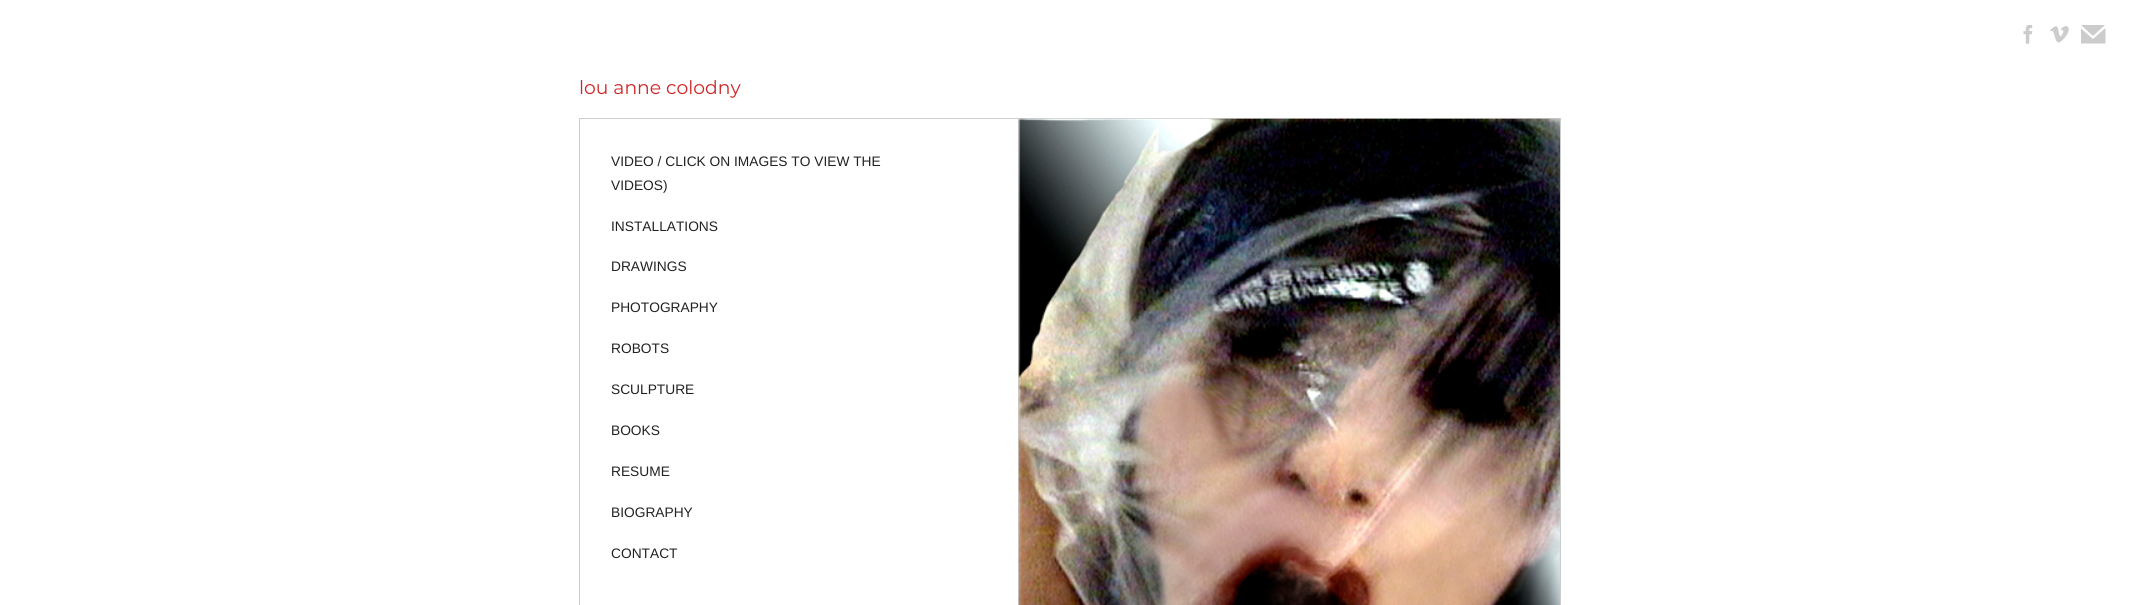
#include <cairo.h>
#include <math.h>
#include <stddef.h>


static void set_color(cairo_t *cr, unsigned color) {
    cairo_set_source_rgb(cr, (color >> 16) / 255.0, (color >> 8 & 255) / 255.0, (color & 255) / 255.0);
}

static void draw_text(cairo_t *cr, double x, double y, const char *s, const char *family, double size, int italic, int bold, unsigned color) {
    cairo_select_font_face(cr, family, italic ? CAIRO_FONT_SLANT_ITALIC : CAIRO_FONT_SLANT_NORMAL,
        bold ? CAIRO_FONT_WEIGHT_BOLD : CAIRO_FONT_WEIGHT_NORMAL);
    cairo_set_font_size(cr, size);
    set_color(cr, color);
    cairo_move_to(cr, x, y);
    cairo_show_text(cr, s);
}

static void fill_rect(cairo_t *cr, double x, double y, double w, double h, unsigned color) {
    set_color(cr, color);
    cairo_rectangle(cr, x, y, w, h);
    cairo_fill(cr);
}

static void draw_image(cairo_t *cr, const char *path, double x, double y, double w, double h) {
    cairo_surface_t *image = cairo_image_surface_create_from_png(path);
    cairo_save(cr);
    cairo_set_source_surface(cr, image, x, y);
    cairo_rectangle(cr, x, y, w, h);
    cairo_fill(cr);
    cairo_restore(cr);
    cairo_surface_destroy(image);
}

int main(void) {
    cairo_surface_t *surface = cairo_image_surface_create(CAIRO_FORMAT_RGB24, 2140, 605);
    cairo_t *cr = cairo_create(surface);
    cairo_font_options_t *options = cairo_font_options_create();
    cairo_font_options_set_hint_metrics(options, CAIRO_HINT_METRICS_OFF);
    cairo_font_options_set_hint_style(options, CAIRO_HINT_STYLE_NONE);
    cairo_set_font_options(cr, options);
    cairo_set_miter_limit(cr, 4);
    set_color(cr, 0xFFFFFF);
    cairo_paint(cr);
    draw_image(cr, "assets/img1.png", 2023, 25, 10, 19);
    draw_image(cr, "assets/img2.png", 2050, 26, 19, 17);
    set_color(cr, 0xCCCCCC);
    cairo_new_path(cr);
    cairo_move_to(cr, 2105, 25);
    cairo_line_to(cr, 2081, 25);
    cairo_line_to(cr, 2093, 36);
    cairo_close_path(cr);
    cairo_move_to(cr, 2093, 39);
    cairo_line_to(cr, 2081, 28.5);
    cairo_line_to(cr, 2081, 43.5);
    cairo_line_to(cr, 2105.5, 43.5);
    cairo_line_to(cr, 2105.5, 28);
    cairo_close_path(cr);
    cairo_fill(cr);
    draw_text(cr, 579, 94, "lou anne colodny", "Montserrat Thin", 18.75, 0, 0, 0xCE2525);
    cairo_rectangle(cr, 579.5, 118.5, 981, 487);
    set_color(cr, 0xCCCCCC);
    cairo_set_line_width(cr, 1);
    cairo_stroke(cr);
    draw_text(cr, 611, 166, "VIDEO / CLICK ON IMAGES TO VIEW THE", "Liberation Sans", 13.75, 0, 0, 0x232121);
    draw_text(cr, 611, 190, "VIDEOS)", "Liberation Sans", 13.75, 0, 0, 0x232121);
    draw_text(cr, 611, 231, "INSTALLATIONS", "Liberation Sans", 13.75, 0, 0, 0x232121);
    draw_text(cr, 611, 271, "DRAWINGS", "Liberation Sans", 13.75, 0, 0, 0x232121);
    draw_text(cr, 611, 312, "PHOTOGRAPHY", "Liberation Sans", 13.75, 0, 0, 0x232121);
    draw_text(cr, 611, 353, "ROBOTS", "Liberation Sans", 13.75, 0, 0, 0x232121);
    draw_text(cr, 611, 394, "SCULPTURE", "Liberation Sans", 13.75, 0, 0, 0x232121);
    draw_text(cr, 611, 435, "BOOKS", "Liberation Sans", 13.75, 0, 0, 0x232121);
    draw_text(cr, 611, 476, "RESUME", "Liberation Sans", 13.75, 0, 0, 0x232121);
    draw_text(cr, 611, 517, "BIOGRAPHY", "Liberation Sans", 13.75, 0, 0, 0x232121);
    draw_text(cr, 611, 558, "CONTACT", "Liberation Sans", 13.75, 0, 0, 0x232121);
    fill_rect(cr, 1018, 119, 1, 486, 0xCCCCCC);
    draw_image(cr, "assets/img3.png", 1018, 118, 542, 487);
    cairo_surface_write_to_png(surface, "output.png");
    cairo_font_options_destroy(options);
    cairo_destroy(cr);
    cairo_surface_destroy(surface);
    return 0;
}
